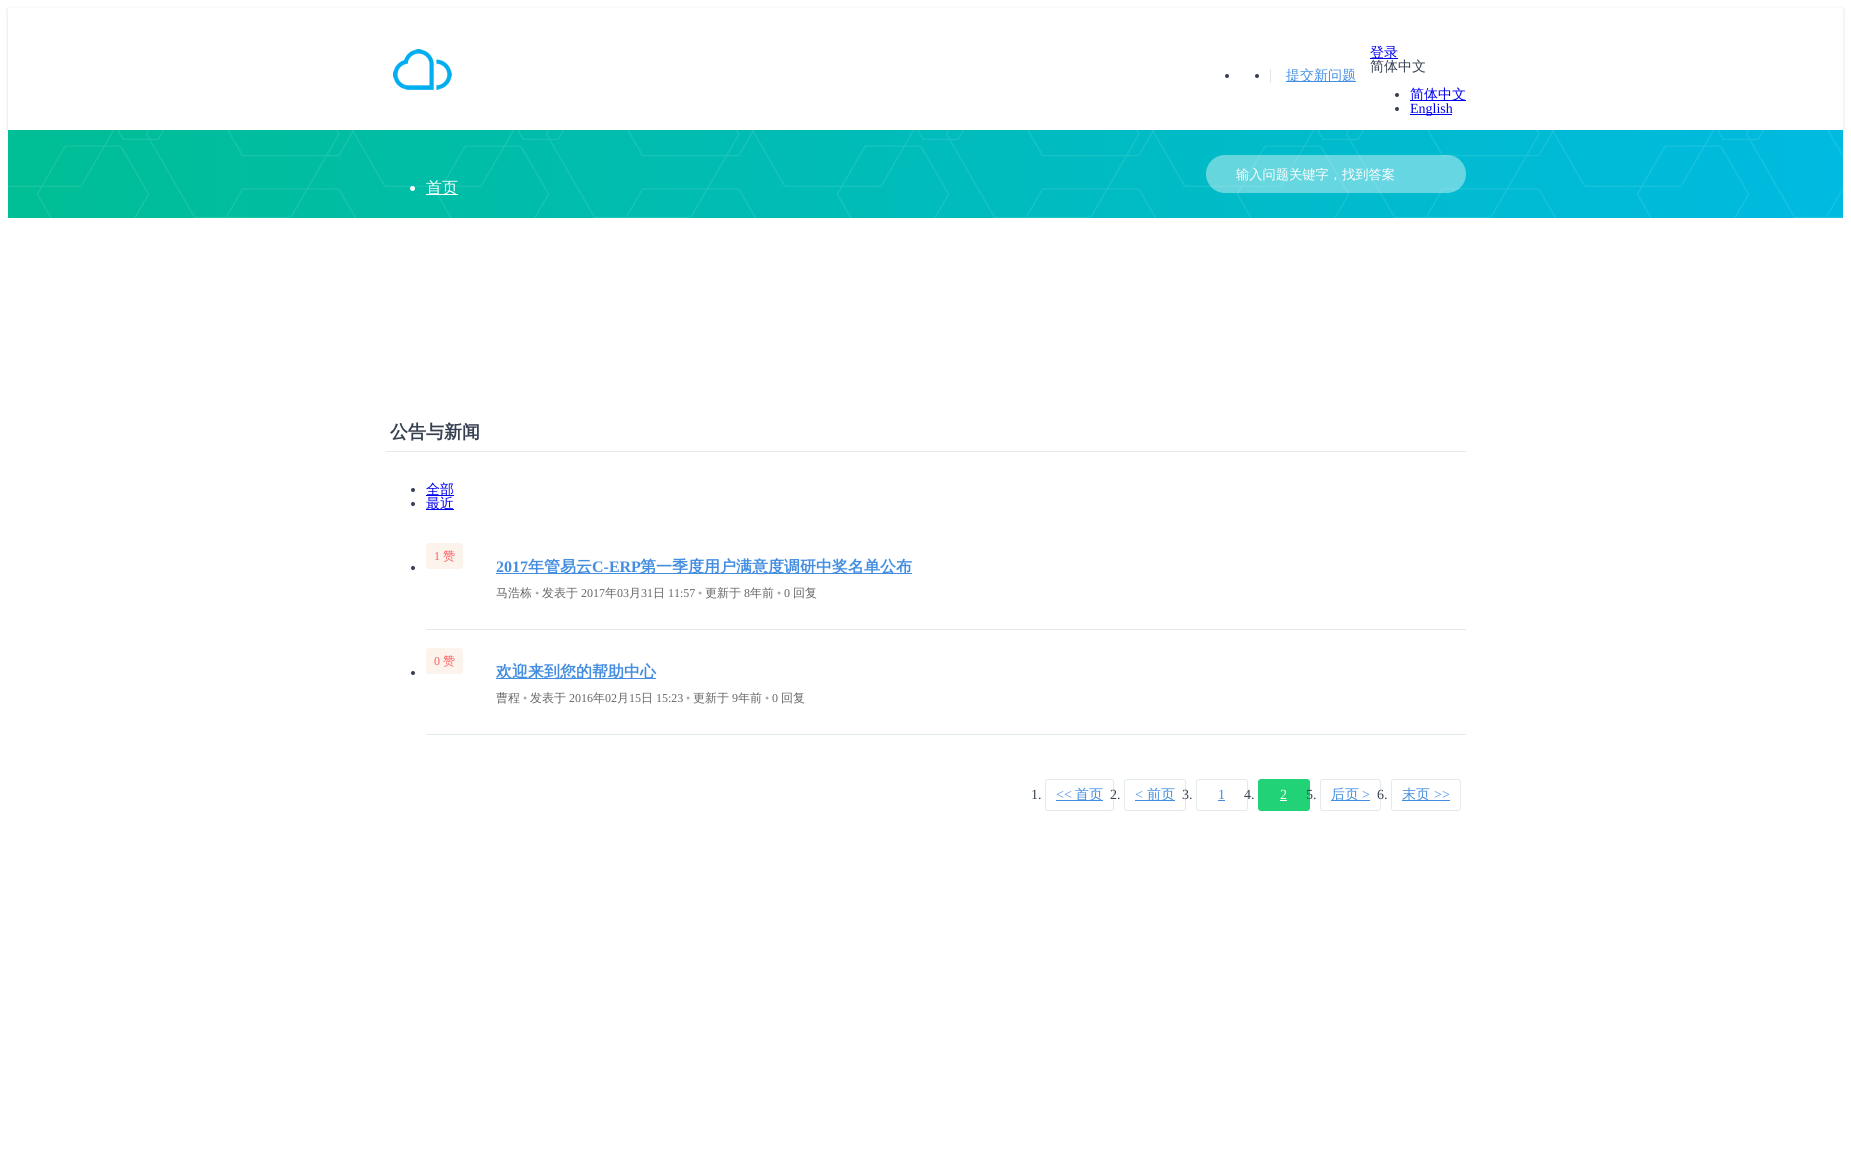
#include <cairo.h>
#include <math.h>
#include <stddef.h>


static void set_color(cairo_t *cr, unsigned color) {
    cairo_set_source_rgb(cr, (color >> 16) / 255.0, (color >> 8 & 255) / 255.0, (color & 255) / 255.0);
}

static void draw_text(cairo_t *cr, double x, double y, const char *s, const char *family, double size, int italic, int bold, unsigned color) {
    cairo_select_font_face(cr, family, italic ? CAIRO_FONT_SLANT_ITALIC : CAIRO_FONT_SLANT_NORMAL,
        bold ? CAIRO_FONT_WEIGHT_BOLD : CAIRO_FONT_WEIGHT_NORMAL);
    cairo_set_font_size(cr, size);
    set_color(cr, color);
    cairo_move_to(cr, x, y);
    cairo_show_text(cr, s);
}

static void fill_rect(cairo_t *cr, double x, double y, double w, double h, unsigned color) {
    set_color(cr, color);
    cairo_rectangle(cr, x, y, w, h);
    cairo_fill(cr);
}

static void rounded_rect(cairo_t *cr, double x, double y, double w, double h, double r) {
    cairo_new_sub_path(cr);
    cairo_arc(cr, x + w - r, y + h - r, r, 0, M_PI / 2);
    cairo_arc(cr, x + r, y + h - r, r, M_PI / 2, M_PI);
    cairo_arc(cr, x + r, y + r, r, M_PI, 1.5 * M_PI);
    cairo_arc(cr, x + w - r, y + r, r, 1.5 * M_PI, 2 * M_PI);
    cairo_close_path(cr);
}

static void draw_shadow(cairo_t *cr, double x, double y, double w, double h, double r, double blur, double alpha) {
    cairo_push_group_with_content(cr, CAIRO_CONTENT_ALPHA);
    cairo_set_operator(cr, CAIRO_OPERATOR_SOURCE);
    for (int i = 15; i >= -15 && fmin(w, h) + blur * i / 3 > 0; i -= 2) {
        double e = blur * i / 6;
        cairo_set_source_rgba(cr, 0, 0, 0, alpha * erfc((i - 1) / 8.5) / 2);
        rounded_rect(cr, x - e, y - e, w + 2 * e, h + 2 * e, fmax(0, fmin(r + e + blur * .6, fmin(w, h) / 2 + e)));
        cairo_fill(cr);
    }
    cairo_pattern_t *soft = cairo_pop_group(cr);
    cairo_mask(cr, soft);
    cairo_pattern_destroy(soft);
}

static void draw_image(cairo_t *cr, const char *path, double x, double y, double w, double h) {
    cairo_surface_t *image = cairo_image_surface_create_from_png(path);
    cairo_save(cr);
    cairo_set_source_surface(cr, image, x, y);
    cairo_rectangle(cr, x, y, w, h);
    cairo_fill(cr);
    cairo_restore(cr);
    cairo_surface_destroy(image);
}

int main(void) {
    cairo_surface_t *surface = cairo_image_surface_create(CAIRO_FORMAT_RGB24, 1851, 1149);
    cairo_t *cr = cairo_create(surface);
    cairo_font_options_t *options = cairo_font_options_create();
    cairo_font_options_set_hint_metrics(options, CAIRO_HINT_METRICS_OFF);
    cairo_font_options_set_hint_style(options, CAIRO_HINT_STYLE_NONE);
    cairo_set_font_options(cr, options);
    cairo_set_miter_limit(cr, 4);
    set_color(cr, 0xFFFFFF);
    cairo_paint(cr);
    cairo_save(cr);
    cairo_set_fill_rule(cr, CAIRO_FILL_RULE_EVEN_ODD);
    cairo_new_path(cr);
    cairo_move_to(cr, 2, 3);
    cairo_line_to(cr, 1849, 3);
    cairo_line_to(cr, 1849, 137);
    cairo_line_to(cr, 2, 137);
    cairo_close_path(cr);
    cairo_move_to(cr, 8, 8);
    cairo_line_to(cr, 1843, 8);
    cairo_line_to(cr, 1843, 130);
    cairo_line_to(cr, 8, 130);
    cairo_close_path(cr);
    cairo_clip(cr);
    set_color(cr, 0x000000);
    draw_shadow(cr, 8, 9, 1835, 122, 0, 1.5, 0.15);
    cairo_restore(cr);
    draw_image(cr, "assets/img1.png", 393, 49, 59, 41);
    set_color(cr, 0x374051);
    cairo_arc(cr, 1227, 76, 2, 0, 2 * M_PI);
    cairo_fill(cr);
    fill_rect(cr, 1270, 69, 1, 14, 0xE2EAEC);
    set_color(cr, 0x374051);
    cairo_arc(cr, 1257, 76, 2, 0, 2 * M_PI);
    cairo_fill(cr);
    fill_rect(cr, 1286, 81, 70, 1, 0x448EE1);
    draw_text(cr, 1286, 80, "提交新问题", "WenQuanYi Zen Hei Medium", 14, 0, 0, 0x448EE1);
    fill_rect(cr, 1370, 58, 28, 1, 0x0000EE);
    draw_text(cr, 1370, 57, "登录", "WenQuanYi Zen Hei Medium", 14, 0, 0, 0x0000EE);
    draw_text(cr, 1370, 71, "简体中文", "WenQuanYi Zen Hei Medium", 14, 0, 0, 0x374051);
    cairo_new_path(cr);
    cairo_arc(cr, 1397, 95, 2, 0, 2 * M_PI);
    cairo_fill(cr);
    fill_rect(cr, 1410, 100, 56, 1, 0x0000EE);
    draw_text(cr, 1410, 99, "简体中文", "WenQuanYi Zen Hei Medium", 14, 0, 0, 0x0000EE);
    set_color(cr, 0x374051);
    cairo_new_path(cr);
    cairo_arc(cr, 1397, 109, 2, 0, 2 * M_PI);
    cairo_fill(cr);
    fill_rect(cr, 1410, 114, 42, 1, 0x0000EE);
    draw_text(cr, 1410, 113, "English", "Liberation Serif", 14, 0, 0, 0x0000EE);
    draw_image(cr, "assets/img2.png", 8, 130, 1835, 88);
    cairo_set_source_rgba(cr, 1, 1, 1, 0.4);
    rounded_rect(cr, 1206, 155, 260, 38, 19);
    cairo_fill(cr);
    draw_text(cr, 1236, 179, "输入问题关键字，找到答案", "WenQuanYi Zen Hei Medium", 13.25, 0, 0, 0xFFFFFF);
    cairo_new_path(cr);
    cairo_arc(cr, 412.5, 188.5, 2.5, 0, 2 * M_PI);
    cairo_fill(cr);
    fill_rect(cr, 426, 194, 32, 1, 0xFFFFFF);
    draw_text(cr, 426, 193, "首页", "WenQuanYi Zen Hei Medium", 16, 0, 0, 0xFFFFFF);
    fill_rect(cr, 386, 451, 1080, 1, 0xE2EAEC);
    draw_text(cr, 390, 438, "公告与新闻", "WenQuanYi Zen Hei", 18, 0, 1, 0x374051);
    cairo_new_path(cr);
    cairo_arc(cr, 413, 490, 2, 0, 2 * M_PI);
    cairo_fill(cr);
    fill_rect(cr, 426, 495, 28, 1, 0x0000EE);
    draw_text(cr, 426, 494, "全部", "WenQuanYi Zen Hei Medium", 14, 0, 0, 0x0000EE);
    set_color(cr, 0x374051);
    cairo_new_path(cr);
    cairo_arc(cr, 413, 504, 2, 0, 2 * M_PI);
    cairo_fill(cr);
    fill_rect(cr, 426, 509, 28, 1, 0x0000EE);
    draw_text(cr, 426, 508, "最近", "WenQuanYi Zen Hei Medium", 14, 0, 0, 0x0000EE);
    fill_rect(cr, 426, 629, 1040, 1, 0xE2EAEC);
    set_color(cr, 0xFBF3EC);
    rounded_rect(cr, 426, 543, 37, 26, 3);
    cairo_fill(cr);
    draw_text(cr, 434, 560, "1", "Liberation Serif", 12, 0, 0, 0xFF595F);
    draw_text(cr, 443, 560, "赞", "WenQuanYi Zen Hei Medium", 12, 0, 0, 0xFF595F);
    set_color(cr, 0x374051);
    cairo_new_path(cr);
    cairo_arc(cr, 413, 568, 2, 0, 2 * M_PI);
    cairo_fill(cr);
    draw_text(cr, 496, 572, "2017", "Liberation Serif", 16, 0, 1, 0x448EE1);
    fill_rect(cr, 496, 573, 416, 1, 0x448EE1);
    draw_text(cr, 528, 572, "年管易云", "WenQuanYi Zen Hei", 16, 0, 1, 0x448EE1);
    draw_text(cr, 592, 572, "C-ERP", "Liberation Serif", 16, 0, 1, 0x448EE1);
    draw_text(cr, 640, 572, "第一季度用户满意度调研中奖名单公布", "WenQuanYi Zen Hei", 16, 0, 1, 0x448EE1);
    draw_text(cr, 496, 597, "马浩栋", "WenQuanYi Zen Hei Medium", 12, 0, 0, 0x666666);
    draw_text(cr, 535, 597, "•", "Liberation Serif", 12, 0, 0, 0xAAAAAA);
    draw_text(cr, 542, 597, "发表于", "WenQuanYi Zen Hei Medium", 12, 0, 0, 0x666666);
    draw_text(cr, 581, 597, "2017", "Liberation Serif", 12, 0, 0, 0x666666);
    draw_text(cr, 605, 597, "年", "WenQuanYi Zen Hei Medium", 12, 0, 0, 0x666666);
    draw_text(cr, 617, 597, "03", "Liberation Serif", 12, 0, 0, 0x666666);
    draw_text(cr, 629, 597, "月", "WenQuanYi Zen Hei Medium", 12, 0, 0, 0x666666);
    draw_text(cr, 641, 597, "31", "Liberation Serif", 12, 0, 0, 0x666666);
    draw_text(cr, 653, 597, "日", "WenQuanYi Zen Hei Medium", 12, 0, 0, 0x666666);
    draw_text(cr, 668, 597, "11:57", "Liberation Serif", 12, 0, 0, 0x666666);
    draw_text(cr, 698, 597, "•", "Liberation Serif", 12, 0, 0, 0xAAAAAA);
    draw_text(cr, 705, 597, "更新于", "WenQuanYi Zen Hei Medium", 12, 0, 0, 0x666666);
    draw_text(cr, 744, 597, "8", "Liberation Serif", 12, 0, 0, 0x666666);
    draw_text(cr, 750, 597, "年前", "WenQuanYi Zen Hei Medium", 12, 0, 0, 0x666666);
    draw_text(cr, 777, 597, "•", "Liberation Serif", 12, 0, 0, 0xAAAAAA);
    draw_text(cr, 784, 597, "0", "Liberation Serif", 12, 0, 0, 0x666666);
    draw_text(cr, 793, 597, "回复", "WenQuanYi Zen Hei Medium", 12, 0, 0, 0x666666);
    fill_rect(cr, 426, 734, 1040, 1, 0xE2EAEC);
    set_color(cr, 0xFBF3EC);
    rounded_rect(cr, 426, 648, 37, 26, 3);
    cairo_fill(cr);
    draw_text(cr, 434, 665, "0", "Liberation Serif", 12, 0, 0, 0xFF595F);
    draw_text(cr, 443, 665, "赞", "WenQuanYi Zen Hei Medium", 12, 0, 0, 0xFF595F);
    set_color(cr, 0x374051);
    cairo_new_path(cr);
    cairo_arc(cr, 413, 673, 2, 0, 2 * M_PI);
    cairo_fill(cr);
    fill_rect(cr, 496, 678, 160, 1, 0x448EE1);
    draw_text(cr, 496, 677, "欢迎来到您的帮助中心", "WenQuanYi Zen Hei", 16, 0, 1, 0x448EE1);
    draw_text(cr, 496, 702, "曹程", "WenQuanYi Zen Hei Medium", 12, 0, 0, 0x666666);
    draw_text(cr, 523, 702, "•", "Liberation Serif", 12, 0, 0, 0xAAAAAA);
    draw_text(cr, 530, 702, "发表于", "WenQuanYi Zen Hei Medium", 12, 0, 0, 0x666666);
    draw_text(cr, 569, 702, "2016", "Liberation Serif", 12, 0, 0, 0x666666);
    draw_text(cr, 593, 702, "年", "WenQuanYi Zen Hei Medium", 12, 0, 0, 0x666666);
    draw_text(cr, 605, 702, "02", "Liberation Serif", 12, 0, 0, 0x666666);
    draw_text(cr, 617, 702, "月", "WenQuanYi Zen Hei Medium", 12, 0, 0, 0x666666);
    draw_text(cr, 629, 702, "15", "Liberation Serif", 12, 0, 0, 0x666666);
    draw_text(cr, 641, 702, "日", "WenQuanYi Zen Hei Medium", 12, 0, 0, 0x666666);
    draw_text(cr, 656, 702, "15:23", "Liberation Serif", 12, 0, 0, 0x666666);
    draw_text(cr, 686, 702, "•", "Liberation Serif", 12, 0, 0, 0xAAAAAA);
    draw_text(cr, 693, 702, "更新于", "WenQuanYi Zen Hei Medium", 12, 0, 0, 0x666666);
    draw_text(cr, 732, 702, "9", "Liberation Serif", 12, 0, 0, 0x666666);
    draw_text(cr, 738, 702, "年前", "WenQuanYi Zen Hei Medium", 12, 0, 0, 0x666666);
    draw_text(cr, 765, 702, "•", "Liberation Serif", 12, 0, 0, 0xAAAAAA);
    draw_text(cr, 772, 702, "0", "Liberation Serif", 12, 0, 0, 0x666666);
    draw_text(cr, 781, 702, "回复", "WenQuanYi Zen Hei Medium", 12, 0, 0, 0x666666);
    draw_text(cr, 1031, 799, "1.", "Liberation Serif", 14, 0, 0, 0x374051);
    rounded_rect(cr, 1045.5, 779.5, 68, 31, 2.5);
    set_color(cr, 0xE2EAEC);
    cairo_set_line_width(cr, 1);
    cairo_stroke(cr);
    draw_text(cr, 1056, 799, "<<", "Liberation Serif", 14, 0, 0, 0x448EE1);
    fill_rect(cr, 1056, 800, 47, 1, 0x448EE1);
    draw_text(cr, 1075, 799, "首页", "WenQuanYi Zen Hei Medium", 14, 0, 0, 0x448EE1);
    draw_text(cr, 1110, 799, "2.", "Liberation Serif", 14, 0, 0, 0x374051);
    rounded_rect(cr, 1124.5, 779.5, 61, 31, 2.5);
    set_color(cr, 0xE2EAEC);
    cairo_stroke(cr);
    draw_text(cr, 1135, 799, "<", "Liberation Serif", 14, 0, 0, 0x448EE1);
    fill_rect(cr, 1135, 800, 40, 1, 0x448EE1);
    draw_text(cr, 1147, 799, "前页", "WenQuanYi Zen Hei Medium", 14, 0, 0, 0x448EE1);
    draw_text(cr, 1182, 799, "3.", "Liberation Serif", 14, 0, 0, 0x374051);
    rounded_rect(cr, 1196.5, 779.5, 51, 31, 2.5);
    set_color(cr, 0xE2EAEC);
    cairo_stroke(cr);
    draw_text(cr, 1218, 799, "1", "Liberation Serif", 14, 0, 0, 0x448EE1);
    fill_rect(cr, 1218, 800, 7, 1, 0x448EE1);
    draw_text(cr, 1244, 799, "4.", "Liberation Serif", 14, 0, 0, 0x374051);
    set_color(cr, 0x21D376);
    rounded_rect(cr, 1258.5, 779.5, 51, 31, 2.5);
    cairo_fill_preserve(cr);
    cairo_stroke(cr);
    draw_text(cr, 1280, 799, "2", "Liberation Serif", 14, 0, 0, 0xFFFFFF);
    fill_rect(cr, 1280, 800, 7, 1, 0xFFFFFF);
    draw_text(cr, 1306, 799, "5.", "Liberation Serif", 14, 0, 0, 0x374051);
    rounded_rect(cr, 1320.5, 779.5, 60, 31, 2.5);
    set_color(cr, 0xE2EAEC);
    cairo_stroke(cr);
    fill_rect(cr, 1331, 800, 39, 1, 0x448EE1);
    draw_text(cr, 1331, 799, "后页", "WenQuanYi Zen Hei Medium", 14, 0, 0, 0x448EE1);
    draw_text(cr, 1362, 799, ">", "Liberation Serif", 14, 0, 0, 0x448EE1);
    draw_text(cr, 1377, 799, "6.", "Liberation Serif", 14, 0, 0, 0x374051);
    rounded_rect(cr, 1391.5, 779.5, 69, 31, 2.5);
    set_color(cr, 0xE2EAEC);
    cairo_stroke(cr);
    fill_rect(cr, 1402, 800, 48, 1, 0x448EE1);
    draw_text(cr, 1402, 799, "末页", "WenQuanYi Zen Hei Medium", 14, 0, 0, 0x448EE1);
    draw_text(cr, 1434, 799, ">>", "Liberation Serif", 14, 0, 0, 0x448EE1);
    cairo_surface_write_to_png(surface, "output.png");
    cairo_font_options_destroy(options);
    cairo_destroy(cr);
    cairo_surface_destroy(surface);
    return 0;
}
